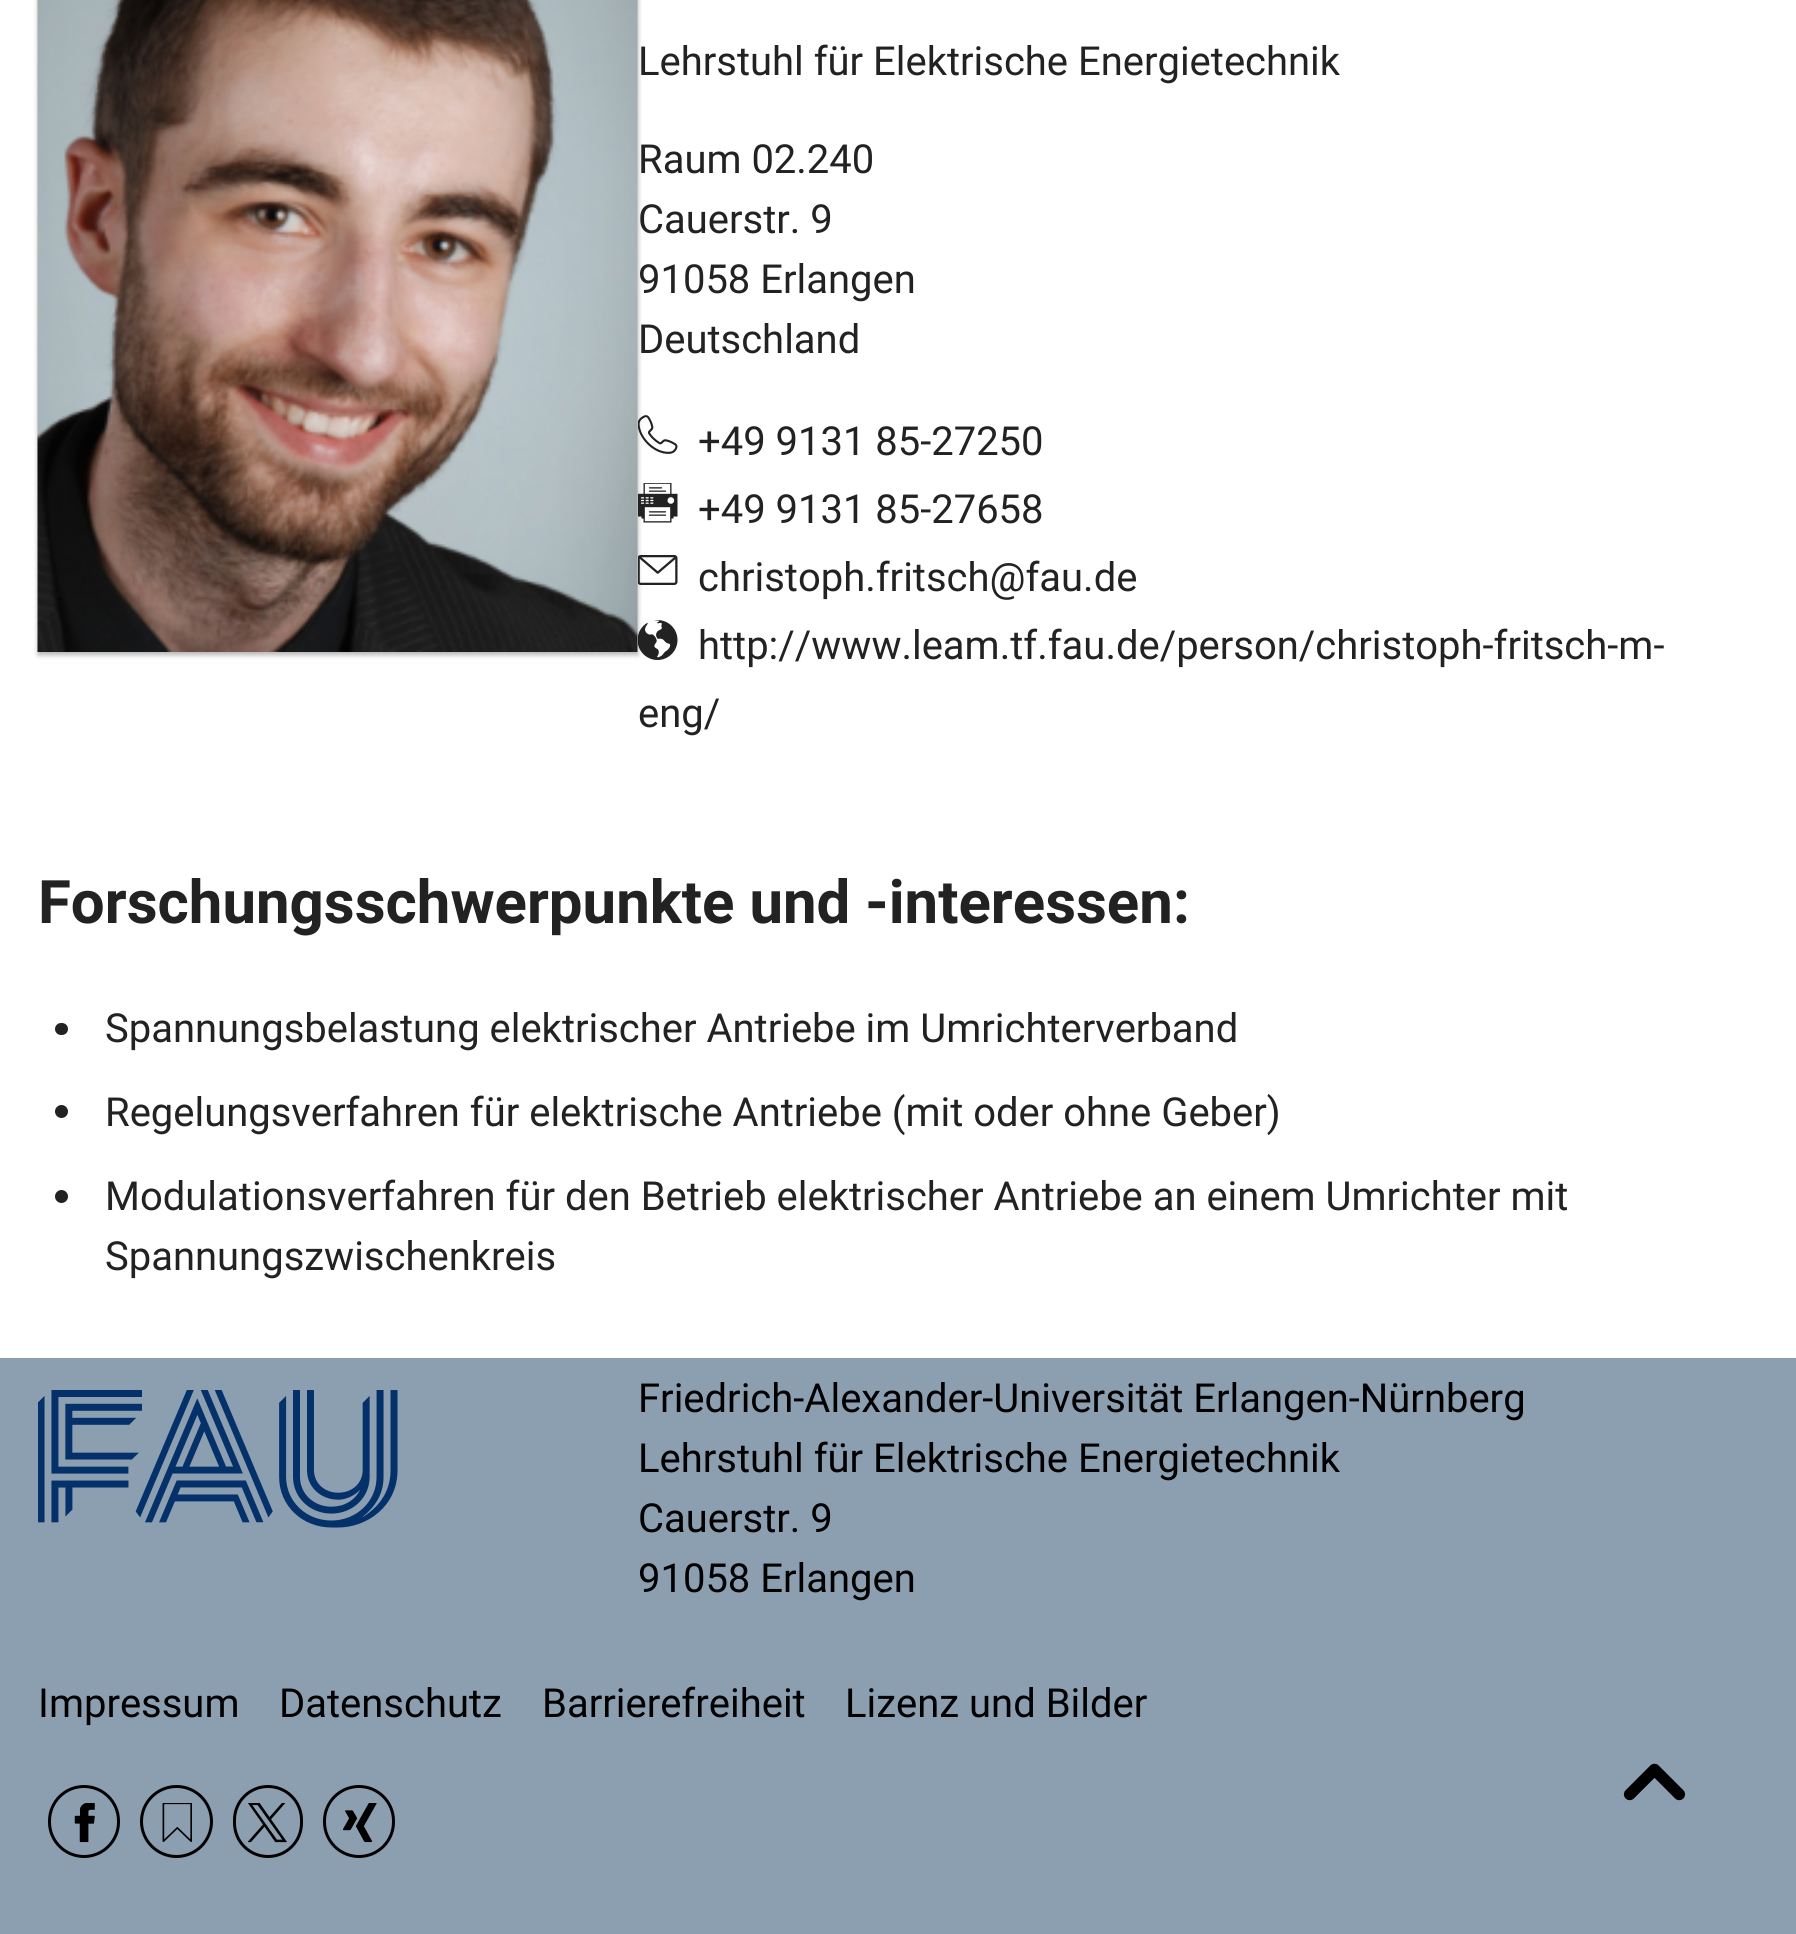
#include <cairo.h>
#include <math.h>
#include <stddef.h>


static void set_color(cairo_t *cr, unsigned color) {
    cairo_set_source_rgb(cr, (color >> 16) / 255.0, (color >> 8 & 255) / 255.0, (color & 255) / 255.0);
}

static void draw_text(cairo_t *cr, double x, double y, const char *s, const char *family, double size, int italic, int bold, unsigned color) {
    cairo_select_font_face(cr, family, italic ? CAIRO_FONT_SLANT_ITALIC : CAIRO_FONT_SLANT_NORMAL,
        bold ? CAIRO_FONT_WEIGHT_BOLD : CAIRO_FONT_WEIGHT_NORMAL);
    cairo_set_font_size(cr, size);
    set_color(cr, color);
    cairo_move_to(cr, x, y);
    cairo_show_text(cr, s);
}

static void fill_rect(cairo_t *cr, double x, double y, double w, double h, unsigned color) {
    set_color(cr, color);
    cairo_rectangle(cr, x, y, w, h);
    cairo_fill(cr);
}

static void rounded_rect(cairo_t *cr, double x, double y, double w, double h, double r) {
    cairo_new_sub_path(cr);
    cairo_arc(cr, x + w - r, y + h - r, r, 0, M_PI / 2);
    cairo_arc(cr, x + r, y + h - r, r, M_PI / 2, M_PI);
    cairo_arc(cr, x + r, y + r, r, M_PI, 1.5 * M_PI);
    cairo_arc(cr, x + w - r, y + r, r, 1.5 * M_PI, 2 * M_PI);
    cairo_close_path(cr);
}

static void draw_shadow(cairo_t *cr, double x, double y, double w, double h, double r, double blur, double alpha) {
    cairo_push_group_with_content(cr, CAIRO_CONTENT_ALPHA);
    cairo_set_operator(cr, CAIRO_OPERATOR_SOURCE);
    for (int i = 15; i >= -15 && fmin(w, h) + blur * i / 3 > 0; i -= 2) {
        double e = blur * i / 6;
        cairo_set_source_rgba(cr, 0, 0, 0, alpha * erfc((i - 1) / 8.5) / 2);
        rounded_rect(cr, x - e, y - e, w + 2 * e, h + 2 * e, fmax(0, fmin(r + e + blur * .6, fmin(w, h) / 2 + e)));
        cairo_fill(cr);
    }
    cairo_pattern_t *soft = cairo_pop_group(cr);
    cairo_mask(cr, soft);
    cairo_pattern_destroy(soft);
}

static void draw_image(cairo_t *cr, const char *path, double x, double y, double w, double h) {
    cairo_surface_t *image = cairo_image_surface_create_from_png(path);
    cairo_save(cr);
    cairo_set_source_surface(cr, image, x, y);
    cairo_rectangle(cr, x, y, w, h);
    cairo_fill(cr);
    cairo_restore(cr);
    cairo_surface_destroy(image);
}

int main(void) {
    cairo_surface_t *surface = cairo_image_surface_create(CAIRO_FORMAT_RGB24, 1796, 1934);
    cairo_t *cr = cairo_create(surface);
    cairo_font_options_t *options = cairo_font_options_create();
    cairo_font_options_set_hint_metrics(options, CAIRO_HINT_METRICS_OFF);
    cairo_font_options_set_hint_style(options, CAIRO_HINT_STYLE_NONE);
    cairo_set_font_options(cr, options);
    cairo_set_miter_limit(cr, 4);
    set_color(cr, 0xFFFFFF);
    cairo_paint(cr);
    set_color(cr, 0x000000);
    draw_shadow(cr, 38, -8, 600, 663, 0, 2.5, 0.3);
    draw_image(cr, "assets/img1.png", 37, 0, 601, 652);
    draw_text(cr, 638, 75, "Lehrstuhl für Elektrische Energietechnik", "Roboto", 40, 0, 0, 0x222222);
    draw_text(cr, 638, 173, "Raum 02.240", "Roboto", 40, 0, 0, 0x222222);
    draw_text(cr, 638, 233, "Cauerstr. 9", "Roboto", 40, 0, 0, 0x222222);
    draw_text(cr, 638, 293, "91058 Erlangen", "Roboto", 40, 0, 0, 0x222222);
    draw_text(cr, 638, 353, "Deutschland", "Roboto", 40, 0, 0, 0x222222);
    draw_image(cr, "assets/img2.png", 638, 415, 40, 39);
    draw_text(cr, 698, 455, "+49 9131 85-27250", "Roboto", 40, 0, 0, 0x222222);
    draw_image(cr, "assets/img3.png", 638, 483, 40, 40);
    draw_text(cr, 698, 523, "+49 9131 85-27658", "Roboto", 40, 0, 0, 0x222222);
    draw_image(cr, "assets/img4.png", 638, 555, 40, 30);
    draw_text(cr, 698, 591, "christoph.fritsch@fau.de", "Roboto", 40, 0, 0, 0x222222);
    draw_image(cr, "assets/img5.png", 638, 620, 40, 40);
    draw_text(cr, 698, 659, "http://www.leam.tf.fau.de/person/christoph-fritsch-m-", "Roboto", 40, 0, 0, 0x222222);
    draw_text(cr, 638, 727, "eng/", "Roboto", 40, 0, 0, 0x222222);
    draw_text(cr, 38, 923, "Forschungsschwerpunkte und -interessen:", "Roboto", 60, 0, 1, 0x222222);
    rounded_rect(cr, 55, 1023, 13, 12, 6);
    cairo_fill(cr);
    draw_text(cr, 105, 1042, "Spannungsbelastung elektrischer Antriebe im Umrichterverband", "Roboto", 40, 0, 0, 0x222222);
    cairo_new_path(cr);
    cairo_arc(cr, 61.5, 1111.5, 6.5, 0, 2 * M_PI);
    cairo_fill(cr);
    draw_text(cr, 105, 1126, "Regelungsverfahren für elektrische Antriebe (mit oder ohne Geber)", "Roboto", 40, 0, 0, 0x222222);
    cairo_new_path(cr);
    cairo_arc(cr, 61.5, 1196.5, 6.5, 0, 2 * M_PI);
    cairo_fill(cr);
    draw_text(cr, 105, 1210, "Modulationsverfahren für den Betrieb elektrischer Antriebe an einem Umrichter mit", "Roboto", 40, 0, 0, 0x222222);
    draw_text(cr, 105, 1270, "Spannungszwischenkreis", "Roboto", 40, 0, 0, 0x222222);
    fill_rect(cr, 0, 1358, 1796, 576, 0x8C9FB1);
    draw_image(cr, "assets/img6.png", 38, 1390, 360, 138);
    draw_text(cr, 638, 1412, "Friedrich-Alexander-Universität Erlangen-Nürnberg", "Roboto", 40, 0, 0, 0x000000);
    draw_text(cr, 638, 1472, "Lehrstuhl für Elektrische Energietechnik", "Roboto", 40, 0, 0, 0x000000);
    draw_text(cr, 638, 1532, "Cauerstr. 9", "Roboto", 40, 0, 0, 0x000000);
    draw_text(cr, 638, 1592, "91058 Erlangen", "Roboto", 40, 0, 0, 0x000000);
    draw_text(cr, 38, 1717, "Impressum", "Roboto", 40, 0, 0, 0x000000);
    draw_text(cr, 279, 1717, "Datenschutz", "Roboto", 40, 0, 0, 0x000000);
    draw_text(cr, 542, 1717, "Barrierefreiheit", "Roboto", 40, 0, 0, 0x000000);
    draw_text(cr, 845, 1717, "Lizenz und Bilder", "Roboto", 40, 0, 0, 0x000000);
    rounded_rect(cr, 49.5, 1786.5, 69, 70, 34.5);
    cairo_set_line_width(cr, 3);
    cairo_stroke(cr);
    draw_image(cr, "assets/img7.png", 74, 1803, 21, 40);
    cairo_arc(cr, 176.5, 1821.5, 35, 0, 2 * M_PI);
    cairo_stroke(cr);
    draw_image(cr, "assets/img8.png", 162, 1803, 30, 39);
    rounded_rect(cr, 234.5, 1786.5, 67, 70, 33.5);
    cairo_stroke(cr);
    draw_image(cr, "assets/img9.png", 248, 1803, 39, 40);
    rounded_rect(cr, 324.5, 1786.5, 69, 70, 34.5);
    cairo_stroke(cr);
    draw_image(cr, "assets/img10.png", 343, 1803, 34, 40);
    draw_image(cr, "assets/img11.png", 1623, 1763, 63, 38);
    cairo_surface_write_to_png(surface, "output.png");
    cairo_font_options_destroy(options);
    cairo_destroy(cr);
    cairo_surface_destroy(surface);
    return 0;
}
